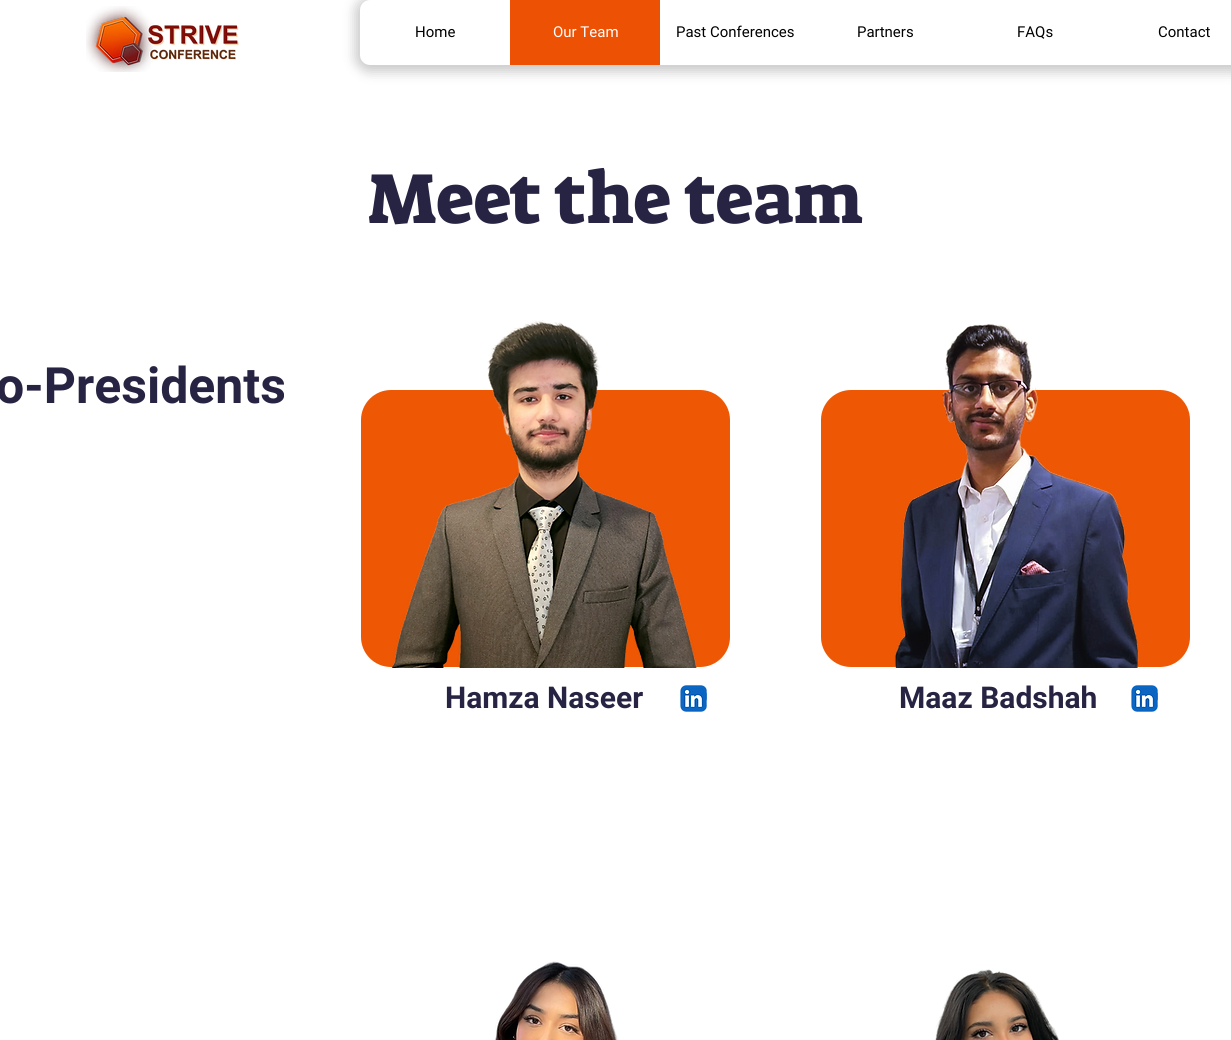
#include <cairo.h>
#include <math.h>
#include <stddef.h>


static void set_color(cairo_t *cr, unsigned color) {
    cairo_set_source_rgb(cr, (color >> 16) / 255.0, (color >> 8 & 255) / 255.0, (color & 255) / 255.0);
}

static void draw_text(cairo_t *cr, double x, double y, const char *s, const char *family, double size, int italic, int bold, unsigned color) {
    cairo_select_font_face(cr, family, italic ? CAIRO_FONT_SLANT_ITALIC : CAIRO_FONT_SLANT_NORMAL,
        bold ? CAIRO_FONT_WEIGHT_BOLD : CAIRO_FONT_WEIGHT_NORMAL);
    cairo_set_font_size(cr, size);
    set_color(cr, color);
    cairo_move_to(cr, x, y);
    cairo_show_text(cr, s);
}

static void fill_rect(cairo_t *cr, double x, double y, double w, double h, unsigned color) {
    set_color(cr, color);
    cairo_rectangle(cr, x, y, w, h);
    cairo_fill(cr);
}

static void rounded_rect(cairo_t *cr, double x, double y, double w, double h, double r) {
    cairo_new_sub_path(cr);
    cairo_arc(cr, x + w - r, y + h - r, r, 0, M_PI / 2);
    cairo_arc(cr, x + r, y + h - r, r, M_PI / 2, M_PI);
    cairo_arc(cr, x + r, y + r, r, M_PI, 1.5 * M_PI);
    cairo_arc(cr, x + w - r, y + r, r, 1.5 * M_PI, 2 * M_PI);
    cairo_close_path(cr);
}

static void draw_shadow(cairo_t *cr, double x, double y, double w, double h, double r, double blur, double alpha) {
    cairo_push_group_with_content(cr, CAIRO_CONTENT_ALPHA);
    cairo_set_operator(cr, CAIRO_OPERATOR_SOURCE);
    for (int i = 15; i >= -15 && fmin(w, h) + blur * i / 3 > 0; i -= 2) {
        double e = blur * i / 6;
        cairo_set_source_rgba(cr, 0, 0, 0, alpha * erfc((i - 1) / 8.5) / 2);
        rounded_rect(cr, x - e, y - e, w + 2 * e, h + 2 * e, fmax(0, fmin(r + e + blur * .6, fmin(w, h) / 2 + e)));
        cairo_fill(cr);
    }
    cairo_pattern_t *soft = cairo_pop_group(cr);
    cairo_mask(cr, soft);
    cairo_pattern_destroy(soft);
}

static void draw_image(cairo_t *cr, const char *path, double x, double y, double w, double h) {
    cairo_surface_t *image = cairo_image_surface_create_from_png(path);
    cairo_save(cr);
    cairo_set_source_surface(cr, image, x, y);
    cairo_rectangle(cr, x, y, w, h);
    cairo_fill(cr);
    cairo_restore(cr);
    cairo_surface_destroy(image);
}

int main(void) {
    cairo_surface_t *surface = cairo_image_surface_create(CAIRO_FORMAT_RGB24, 1231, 1040);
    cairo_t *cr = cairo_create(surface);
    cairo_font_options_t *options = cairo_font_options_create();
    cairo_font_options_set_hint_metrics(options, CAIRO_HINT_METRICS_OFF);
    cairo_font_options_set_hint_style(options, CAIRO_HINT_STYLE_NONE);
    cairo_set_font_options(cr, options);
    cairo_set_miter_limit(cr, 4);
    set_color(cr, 0xFFFFFF);
    cairo_paint(cr);
    draw_image(cr, "assets/img1.png", 86, 6, 153, 66);
    set_color(cr, 0x000000);
    draw_shadow(cr, 355, -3, 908, 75, 15, 6, 0.21);
    set_color(cr, 0xFFFFFF);
    rounded_rect(cr, 360, 0, 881, 65, 10);
    cairo_fill(cr);
    draw_text(cr, 415, 37, "Home", "Roboto", 15, 0, 0, 0x000000);
    fill_rect(cr, 510, 0, 150, 65, 0xEC5104);
    draw_text(cr, 553, 37, "Our Team", "Roboto", 15, 0, 0, 0xFFFFFF);
    draw_text(cr, 676, 37, "Past Conferences", "Roboto", 15, 0, 0, 0x000000);
    draw_text(cr, 857, 37, "Partners", "Roboto", 15, 0, 0, 0x000000);
    draw_text(cr, 1017, 37, "FAQs", "Roboto", 15, 0, 0, 0x000000);
    draw_text(cr, 1158, 37, "Contact", "Roboto", 15, 0, 0, 0x000000);
    draw_text(cr, 368, 223, "Meet the team", "Suez One", 72, 0, 0, 0x272443);
    draw_text(cr, -4, 403, "o-Presidents", "Roboto", 50, 0, 1, 0x272443);
    set_color(cr, 0xEE5703);
    rounded_rect(cr, 361, 390, 369, 277, 30);
    cairo_fill(cr);
    draw_image(cr, "assets/img2.png", 391, 320, 306, 348);
    rounded_rect(cr, 821, 390, 369, 277, 30);
    cairo_fill(cr);
    draw_image(cr, "assets/img3.png", 895, 324, 244, 344);
    draw_text(cr, 445, 708, "Hamza Naseer", "Roboto", 30, 0, 1, 0x272443);
    draw_image(cr, "assets/img4.png", 680, 685, 27, 27);
    draw_text(cr, 899, 708, "Maaz Badshah", "Roboto", 30, 0, 1, 0x272443);
    draw_image(cr, "assets/img4.png", 1131, 685, 27, 27);
    draw_image(cr, "assets/img5.png", 495, 961, 124, 79);
    draw_image(cr, "assets/img6.png", 935, 969, 124, 71);
    cairo_surface_write_to_png(surface, "output.png");
    cairo_font_options_destroy(options);
    cairo_destroy(cr);
    cairo_surface_destroy(surface);
    return 0;
}
